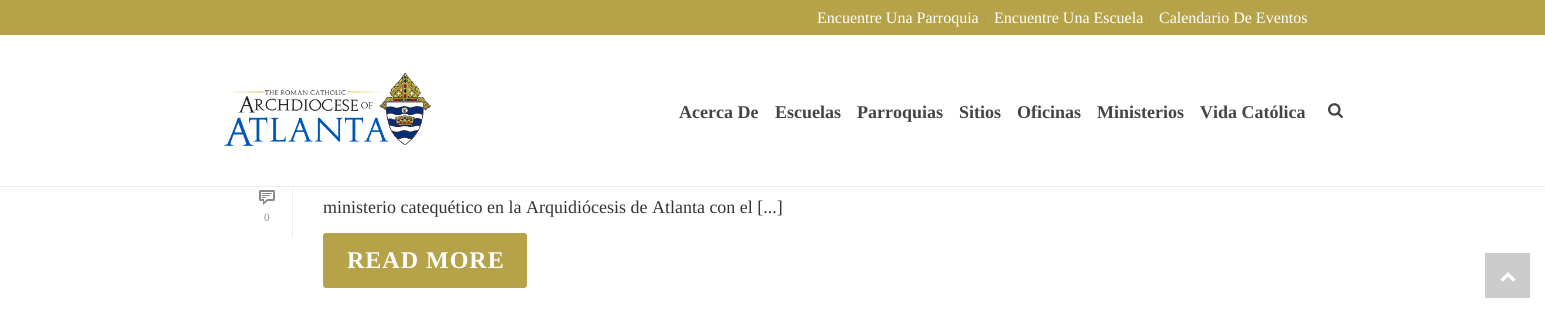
#include <cairo.h>
#include <math.h>
#include <stddef.h>


static void set_color(cairo_t *cr, unsigned color) {
    cairo_set_source_rgb(cr, (color >> 16) / 255.0, (color >> 8 & 255) / 255.0, (color & 255) / 255.0);
}

static void draw_text(cairo_t *cr, double x, double y, const char *s, const char *family, double size, int italic, int bold, unsigned color) {
    cairo_select_font_face(cr, family, italic ? CAIRO_FONT_SLANT_ITALIC : CAIRO_FONT_SLANT_NORMAL,
        bold ? CAIRO_FONT_WEIGHT_BOLD : CAIRO_FONT_WEIGHT_NORMAL);
    cairo_set_font_size(cr, size);
    set_color(cr, color);
    cairo_move_to(cr, x, y);
    cairo_show_text(cr, s);
}

static void draw_spaced(cairo_t *cr, double x, double y, const char *s, double letter, double word) {
    cairo_move_to(cr, x, y);
    while (*s) {
        char ch[5] = {0};
        int n = 0;
        do ch[n++] = *s++; while ((*s & 0xC0) == 0x80);
        cairo_show_text(cr, ch);
        cairo_rel_move_to(cr, letter + word * (*ch == ' '), 0);
    }
}

static void fill_rect(cairo_t *cr, double x, double y, double w, double h, unsigned color) {
    set_color(cr, color);
    cairo_rectangle(cr, x, y, w, h);
    cairo_fill(cr);
}

static void rounded_rect(cairo_t *cr, double x, double y, double w, double h, double r) {
    cairo_new_sub_path(cr);
    cairo_arc(cr, x + w - r, y + h - r, r, 0, M_PI / 2);
    cairo_arc(cr, x + r, y + h - r, r, M_PI / 2, M_PI);
    cairo_arc(cr, x + r, y + r, r, M_PI, 1.5 * M_PI);
    cairo_arc(cr, x + w - r, y + r, r, 1.5 * M_PI, 2 * M_PI);
    cairo_close_path(cr);
}

static void draw_image(cairo_t *cr, const char *path, double x, double y, double w, double h) {
    cairo_surface_t *image = cairo_image_surface_create_from_png(path);
    cairo_save(cr);
    cairo_set_source_surface(cr, image, x, y);
    cairo_rectangle(cr, x, y, w, h);
    cairo_fill(cr);
    cairo_restore(cr);
    cairo_surface_destroy(image);
}

int main(void) {
    cairo_surface_t *surface = cairo_image_surface_create(CAIRO_FORMAT_RGB24, 1545, 313);
    cairo_t *cr = cairo_create(surface);
    cairo_font_options_t *options = cairo_font_options_create();
    cairo_font_options_set_hint_metrics(options, CAIRO_HINT_METRICS_OFF);
    cairo_font_options_set_hint_style(options, CAIRO_HINT_STYLE_NONE);
    cairo_set_font_options(cr, options);
    cairo_set_miter_limit(cr, 4);
    set_color(cr, 0xFFFFFF);
    cairo_paint(cr);
    fill_rect(cr, 0, 0, 1545, 35, 0xB6A349);
    fill_rect(cr, 984, 13, 1, 10, 0xAB9C54);
    draw_text(cr, 817, 23, "Encuentre Una Parroquia", "Liberation Serif", 16, 0, 0, 0xFFFFFF);
    fill_rect(cr, 1149, 13, 1, 10, 0xAB9C54);
    draw_text(cr, 994, 23, "Encuentre Una Escuela", "Liberation Serif", 16, 0, 0, 0xFFFFFF);
    draw_text(cr, 1159, 23, "Calendario De Eventos", "Liberation Serif", 16, 0, 0, 0xFFFFFF);
    fill_rect(cr, 0, 186, 1545, 1, 0xEDEDED);
    draw_image(cr, "assets/img1.png", 223, 72, 208, 74);
    draw_text(cr, 679, 118, "Acerca De", "Liberation Serif", 18, 0, 1, 0x444444);
    draw_text(cr, 775, 118, "Escuelas", "Liberation Serif", 18, 0, 1, 0x444444);
    draw_text(cr, 857, 118, "Parroquias", "Liberation Serif", 18, 0, 1, 0x444444);
    draw_text(cr, 959, 118, "Sitios", "Liberation Serif", 18, 0, 1, 0x444444);
    draw_text(cr, 1017, 118, "Oficinas", "Liberation Serif", 18, 0, 1, 0x444444);
    draw_text(cr, 1097, 118, "Ministerios", "Liberation Serif", 18, 0, 1, 0x444444);
    draw_text(cr, 1200, 118, "Vida Católica", "Liberation Serif", 18, 0, 1, 0x444444);
    draw_image(cr, "assets/img2.png", 1328, 103, 15, 15);
    fill_rect(cr, 292, 187, 1, 51, 0xEFEFEF);
    draw_image(cr, "assets/img3.png", 259, 190, 16, 15);
    draw_text(cr, 264, 221, "0", "Liberation Serif", 11, 0, 0, 0x898989);
    draw_text(cr, 323, 213, "ministerio catequético en la Arquidiócesis de Atlanta con el [...]", "Liberation Serif", 18, 0, 0, 0x333333);
    set_color(cr, 0xB6A349);
    rounded_rect(cr, 323, 233, 204, 55, 3);
    cairo_fill(cr);
    cairo_select_font_face(cr, "Liberation Serif", CAIRO_FONT_SLANT_NORMAL, CAIRO_FONT_WEIGHT_BOLD);
    cairo_set_font_size(cr, 24);
    set_color(cr, 0xFFFFFF);
    draw_spaced(cr, 347, 268, "READ MORE", 1, 0);
    fill_rect(cr, 1485, 253, 45, 45, 0xCCCCCC);
    draw_image(cr, "assets/img4.png", 1500, 272, 16, 10);
    cairo_surface_write_to_png(surface, "output.png");
    cairo_font_options_destroy(options);
    cairo_destroy(cr);
    cairo_surface_destroy(surface);
    return 0;
}
